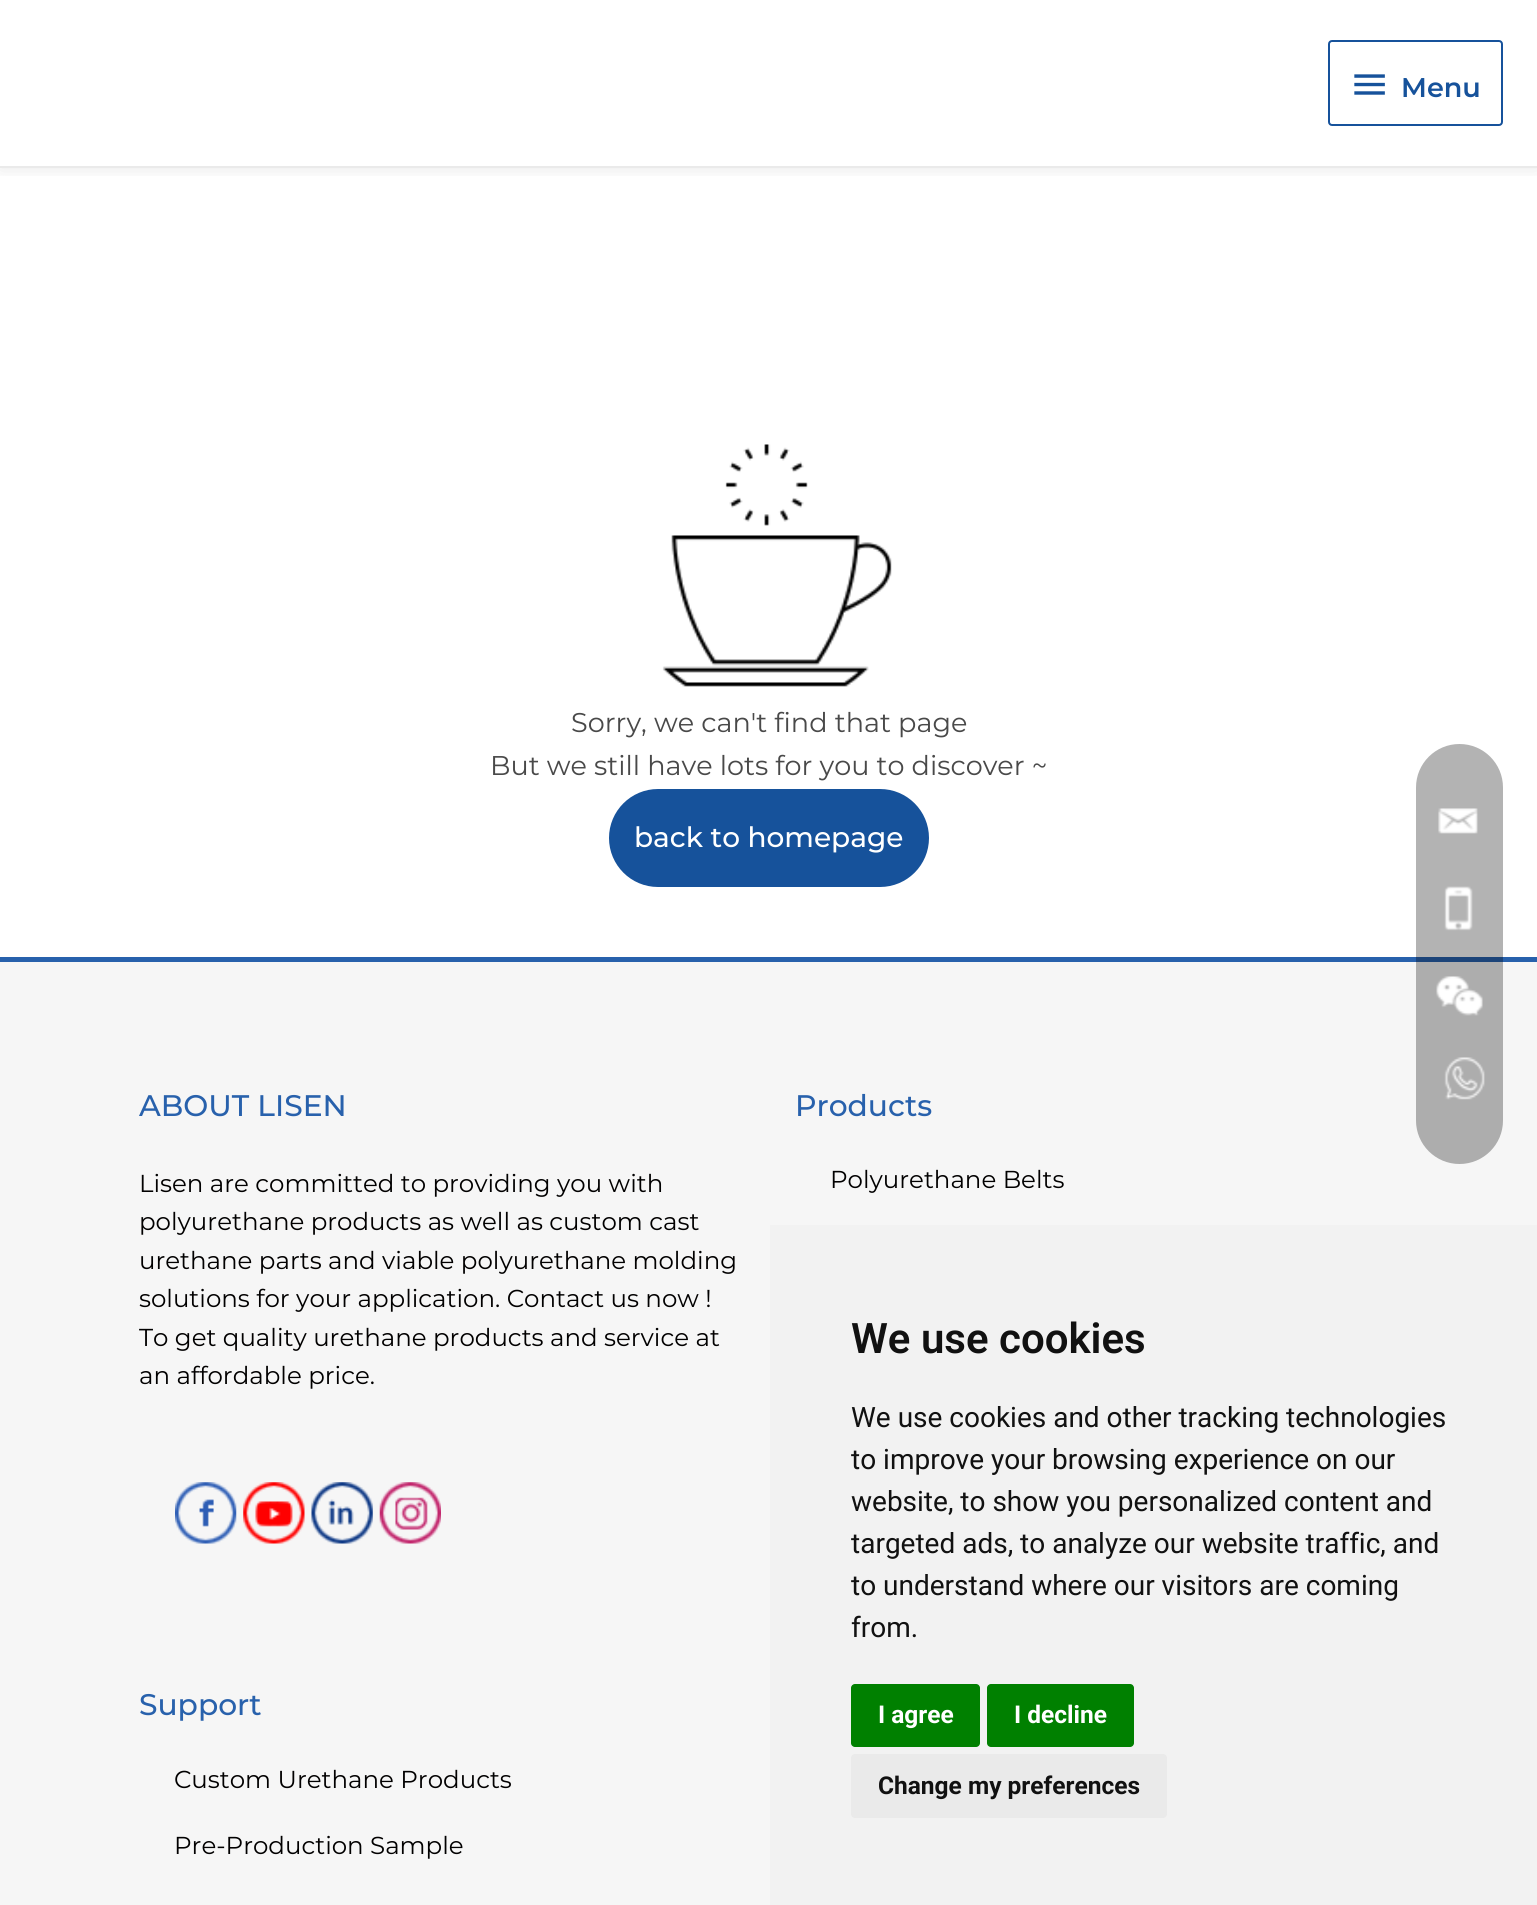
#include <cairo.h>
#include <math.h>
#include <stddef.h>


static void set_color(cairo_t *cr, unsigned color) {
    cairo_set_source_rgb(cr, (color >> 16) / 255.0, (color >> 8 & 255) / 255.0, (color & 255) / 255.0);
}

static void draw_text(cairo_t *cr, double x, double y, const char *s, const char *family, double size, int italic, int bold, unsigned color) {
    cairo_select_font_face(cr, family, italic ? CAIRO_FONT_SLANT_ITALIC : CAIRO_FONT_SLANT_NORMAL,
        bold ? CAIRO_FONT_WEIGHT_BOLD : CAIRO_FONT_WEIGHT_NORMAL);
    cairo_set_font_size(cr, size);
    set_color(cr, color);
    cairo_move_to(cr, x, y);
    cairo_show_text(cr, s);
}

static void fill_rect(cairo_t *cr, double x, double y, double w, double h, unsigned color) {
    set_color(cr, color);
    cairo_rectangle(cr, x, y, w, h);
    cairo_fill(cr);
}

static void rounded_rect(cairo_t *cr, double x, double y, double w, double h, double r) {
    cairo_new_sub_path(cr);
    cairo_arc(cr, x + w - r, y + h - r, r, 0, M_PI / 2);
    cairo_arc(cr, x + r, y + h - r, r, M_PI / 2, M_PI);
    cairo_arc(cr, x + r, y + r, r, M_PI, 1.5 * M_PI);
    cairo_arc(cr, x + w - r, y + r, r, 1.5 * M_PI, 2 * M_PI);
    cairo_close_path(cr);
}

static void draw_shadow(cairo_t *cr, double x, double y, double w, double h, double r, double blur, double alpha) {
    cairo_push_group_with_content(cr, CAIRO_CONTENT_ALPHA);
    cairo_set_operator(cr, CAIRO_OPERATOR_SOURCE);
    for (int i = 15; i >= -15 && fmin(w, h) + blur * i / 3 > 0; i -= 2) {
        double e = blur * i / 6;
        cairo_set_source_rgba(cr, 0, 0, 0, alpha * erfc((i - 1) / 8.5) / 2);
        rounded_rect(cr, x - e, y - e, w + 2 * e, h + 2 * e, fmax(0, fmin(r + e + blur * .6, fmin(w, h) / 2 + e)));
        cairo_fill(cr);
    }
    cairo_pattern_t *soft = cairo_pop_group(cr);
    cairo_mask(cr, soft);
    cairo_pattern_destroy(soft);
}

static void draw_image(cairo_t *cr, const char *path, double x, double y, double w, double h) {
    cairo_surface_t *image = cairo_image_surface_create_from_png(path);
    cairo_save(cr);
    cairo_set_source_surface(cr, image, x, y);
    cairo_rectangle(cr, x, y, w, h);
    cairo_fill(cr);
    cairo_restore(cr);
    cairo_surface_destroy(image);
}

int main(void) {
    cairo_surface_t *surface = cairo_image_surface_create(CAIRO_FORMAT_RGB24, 1537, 1905);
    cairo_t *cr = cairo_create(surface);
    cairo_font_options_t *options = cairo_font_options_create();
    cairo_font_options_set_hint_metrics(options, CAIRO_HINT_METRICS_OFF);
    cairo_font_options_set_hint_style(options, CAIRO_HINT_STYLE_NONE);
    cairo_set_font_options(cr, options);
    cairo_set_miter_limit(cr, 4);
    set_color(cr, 0xFFFFFF);
    cairo_paint(cr);
    cairo_save(cr);
    cairo_rectangle(cr, 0, 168, 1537, 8);
    cairo_clip(cr);
    set_color(cr, 0x000000);
    draw_shadow(cr, 0, 0, 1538, 168, 0, 9, 0.1);
    cairo_restore(cr);
    fill_rect(cr, 0, 166, 1537, 2, 0xEAEAEA);
    rounded_rect(cr, 1329, 41, 173, 84, 3);
    set_color(cr, 0x16529B);
    cairo_stroke(cr);
    draw_image(cr, "assets/img1.png", 1354, 74, 31, 21);
    draw_text(cr, 1401, 97, "Menu", "Montserrat SemiBold", 27.1, 0, 0, 0x16529B);
    draw_image(cr, "assets/img2.png", 662, 444, 230, 243);
    draw_text(cr, 571, 732, "Sorry, we can't find that page", "Montserrat", 27.1, 0, 0, 0x494949);
    draw_text(cr, 490, 775, "But we still have lots for you to discover ~", "Montserrat", 27.1, 0, 0, 0x494949);
    set_color(cr, 0x16529B);
    rounded_rect(cr, 609, 789, 320, 98, 49);
    cairo_fill(cr);
    draw_text(cr, 634, 847, "back to homepage", "Montserrat Medium", 28, 0, 0, 0xFFFFFF);
    fill_rect(cr, 0, 962, 1537, 943, 0xF6F6F6);
    fill_rect(cr, 0, 957, 1537, 5, 0x2861AC);
    draw_text(cr, 139, 1116, "ABOUT LISEN", "Montserrat Medium", 29.75, 0, 0, 0x2861AC);
    draw_text(cr, 139, 1192, "Lisen are committed to providing you with", "Montserrat", 24.5, 0, 0, 0x010000);
    draw_text(cr, 139, 1230, "polyurethane products as well as custom cast", "Montserrat", 24.5, 0, 0, 0x010000);
    draw_text(cr, 139, 1269, "urethane parts and viable polyurethane molding", "Montserrat", 24.5, 0, 0, 0x010000);
    draw_text(cr, 139, 1307, "solutions for your application. Contact us now !", "Montserrat", 24.5, 0, 0, 0x010000);
    draw_text(cr, 139, 1346, "To get quality urethane products and service at", "Montserrat", 24.5, 0, 0, 0x010000);
    draw_text(cr, 139, 1384, "an affordable price.", "Montserrat", 24.5, 0, 0, 0x010000);
    draw_image(cr, "assets/img3.png", 175, 1482, 62, 62);
    draw_image(cr, "assets/img4.png", 243, 1482, 62, 62);
    draw_image(cr, "assets/img5.png", 311, 1482, 62, 62);
    draw_image(cr, "assets/img6.png", 379, 1482, 62, 62);
    draw_text(cr, 795, 1116, "Products", "Montserrat Medium", 29.75, 0, 0, 0x2861AC);
    draw_text(cr, 830, 1188, "Polyurethane Belts", "Montserrat", 24.5, 0, 0, 0x010000);
    draw_text(cr, 139, 1715, "Support", "Montserrat Medium", 29.75, 0, 0, 0x2861AC);
    draw_text(cr, 174, 1788, "Custom Urethane Products", "Montserrat", 24.5, 0, 0, 0x010000);
    draw_text(cr, 174, 1854, "Pre-Production Sample", "Montserrat", 24.5, 0, 0, 0x010000);
    cairo_set_source_rgba(cr, 0, 0, 0, 0.3);
    rounded_rect(cr, 1416, 744, 87, 420, 43.5);
    cairo_fill(cr);
    draw_image(cr, "assets/img7.png", 1438, 808, 40, 26);
    draw_image(cr, "assets/img8.png", 1444, 886, 29, 45);
    draw_image(cr, "assets/img9.png", 1436, 976, 47, 40);
    draw_image(cr, "assets/img10.png", 1444, 1057, 41, 43);
    fill_rect(cr, 770, 1225, 767, 680, 0xF2F2F2);
    draw_text(cr, 851, 1353, "We use cookies", "Roboto SemiBold", 42, 0, 0, 0x111111);
    draw_text(cr, 851, 1427, "We use cookies and other tracking technologies", "Roboto", 28, 0, 0, 0x111111);
    draw_text(cr, 851, 1469, "to improve your browsing experience on our", "Roboto", 28, 0, 0, 0x111111);
    draw_text(cr, 851, 1511, "website, to show you personalized content and", "Roboto", 28, 0, 0, 0x111111);
    draw_text(cr, 851, 1553, "targeted ads, to analyze our website traffic, and", "Roboto", 28, 0, 0, 0x111111);
    draw_text(cr, 851, 1595, "to understand where our visitors are coming", "Roboto", 28, 0, 0, 0x111111);
    draw_text(cr, 851, 1637, "from.", "Roboto", 28, 0, 0, 0x111111);
    set_color(cr, 0x008000);
    rounded_rect(cr, 851, 1684, 129, 63, 4);
    cairo_fill(cr);
    draw_text(cr, 878, 1723, "I agree", "Roboto", 24.5, 0, 1, 0xFFFFFF);
    set_color(cr, 0x008000);
    rounded_rect(cr, 987, 1684, 147, 63, 4);
    cairo_fill(cr);
    draw_text(cr, 1014, 1723, "I decline", "Roboto", 24.5, 0, 1, 0xFFFFFF);
    set_color(cr, 0xEAEAEA);
    rounded_rect(cr, 851, 1754, 316, 64, 4);
    cairo_fill(cr);
    draw_text(cr, 878, 1794, "Change my preferences", "Roboto", 24.5, 0, 1, 0x111111);
    cairo_surface_write_to_png(surface, "output.png");
    cairo_font_options_destroy(options);
    cairo_destroy(cr);
    cairo_surface_destroy(surface);
    return 0;
}
